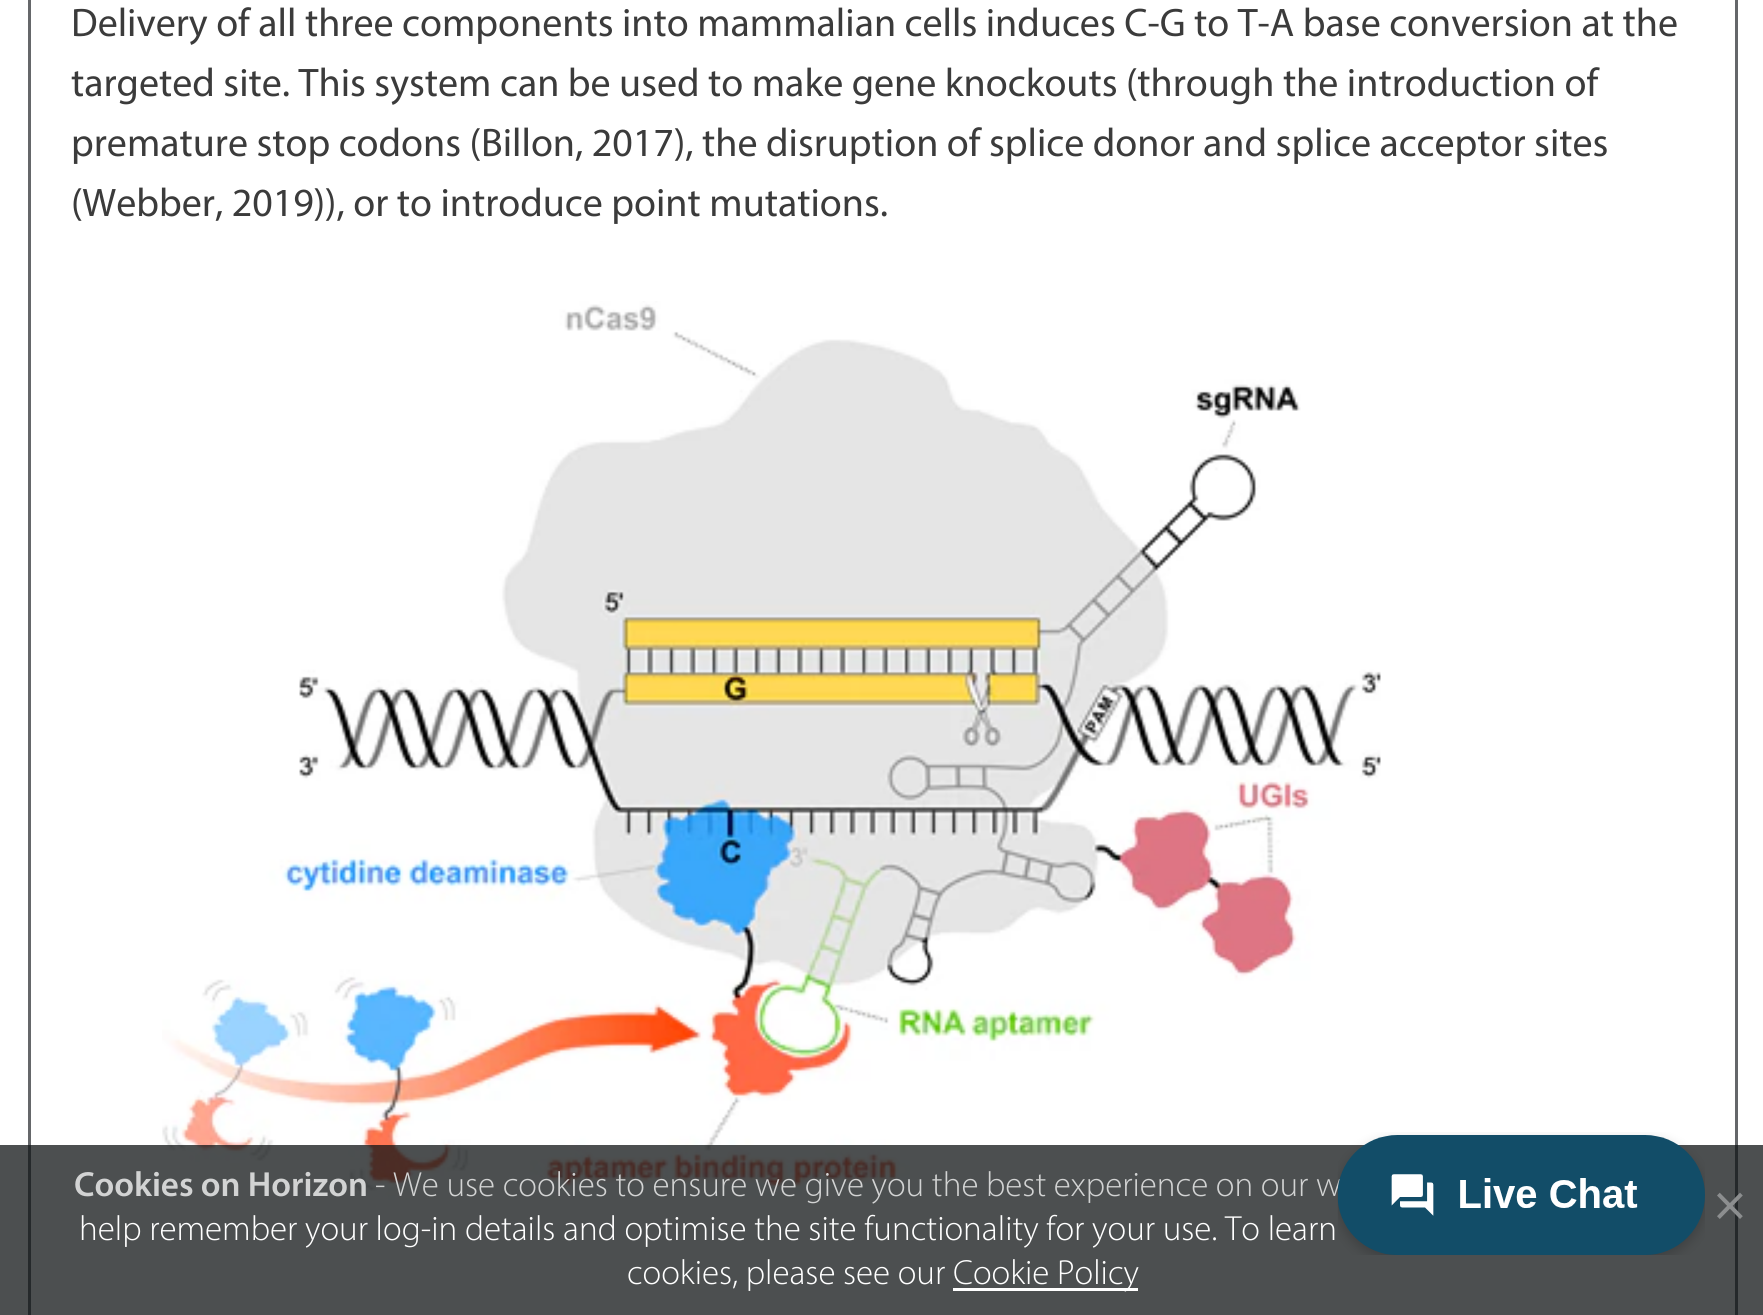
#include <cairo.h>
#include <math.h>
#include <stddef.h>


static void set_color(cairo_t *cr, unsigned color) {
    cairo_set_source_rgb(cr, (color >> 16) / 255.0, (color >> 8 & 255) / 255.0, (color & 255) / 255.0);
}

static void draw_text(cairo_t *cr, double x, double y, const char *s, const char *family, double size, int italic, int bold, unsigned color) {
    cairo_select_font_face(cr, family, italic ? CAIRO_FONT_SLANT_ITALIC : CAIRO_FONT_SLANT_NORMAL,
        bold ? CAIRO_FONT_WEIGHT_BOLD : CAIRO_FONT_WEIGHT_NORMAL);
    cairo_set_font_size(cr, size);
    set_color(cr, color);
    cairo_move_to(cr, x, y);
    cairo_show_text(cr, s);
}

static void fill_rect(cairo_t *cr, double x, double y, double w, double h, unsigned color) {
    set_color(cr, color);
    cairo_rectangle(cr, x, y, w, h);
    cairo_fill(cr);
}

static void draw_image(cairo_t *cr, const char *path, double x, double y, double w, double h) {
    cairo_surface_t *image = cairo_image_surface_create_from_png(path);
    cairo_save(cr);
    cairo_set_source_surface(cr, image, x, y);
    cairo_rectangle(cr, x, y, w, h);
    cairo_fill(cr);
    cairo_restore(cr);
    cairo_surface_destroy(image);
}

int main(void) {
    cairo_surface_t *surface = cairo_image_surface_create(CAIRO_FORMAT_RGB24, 1763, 1315);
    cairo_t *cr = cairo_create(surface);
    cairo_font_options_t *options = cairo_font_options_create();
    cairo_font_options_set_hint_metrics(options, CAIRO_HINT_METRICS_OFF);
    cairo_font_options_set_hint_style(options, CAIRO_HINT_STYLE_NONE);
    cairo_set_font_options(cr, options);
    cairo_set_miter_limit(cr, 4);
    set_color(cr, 0xFFFFFF);
    cairo_paint(cr);
    cairo_rectangle(cr, 29.5, -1.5, 1707, 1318);
    set_color(cr, 0x65676A);
    cairo_set_line_width(cr, 3);
    cairo_stroke(cr);
    draw_text(cr, 71, 36, "Delivery of all three components into mammalian cells induces C-G to T-A base conversion at the", "Myriad", 40, 0, 0, 0x3B3B3B);
    draw_text(cr, 71, 96, "targeted site. This system can be used to make gene knockouts (through the introduction of", "Myriad", 40, 0, 0, 0x3B3B3B);
    draw_text(cr, 71, 156, "premature stop codons (Billon, 2017), the disruption of splice donor and splice acceptor sites", "Myriad", 40, 0, 0, 0x3B3B3B);
    draw_text(cr, 71, 216, "(Webber, 2019)), or to introduce point mutations.", "Myriad", 40, 0, 0, 0x3B3B3B);
    draw_image(cr, "assets/img1.png", 162, 301, 1219, 899);
    cairo_set_source_rgba(cr, 0.063, 0.082, 0.086, 0.75);
    cairo_rectangle(cr, 0, 1145, 1763, 170);
    cairo_fill(cr);
    draw_text(cr, 375, 1196, "- We use cookies to ensure we give you the best experience on our w", "Myriad Light", 35, 0, 0, 0xD2D3D3);
    draw_image(cr, "assets/img2.png", 1337, 1132, 368, 123);
    draw_text(cr, 74, 1196, "Cookies on Horizon", "Myriad SemiBold", 35, 0, 0, 0xD2D3D3);
    draw_text(cr, 79, 1240, "help remember your log-in details and optimise the site functionality for your use. To learn", "Myriad Light", 35, 0, 0, 0xFFFFFF);
    draw_text(cr, 627, 1284, "cookies, please see our", "Myriad Light", 35, 0, 0, 0xFFFFFF);
    fill_rect(cr, 953, 1288, 185, 3, 0xFFFFFF);
    draw_text(cr, 953, 1284, "Cookie Policy", "Myriad Light", 35, 0, 0, 0xFFFFFF);
    draw_text(cr, 1715, 1219, "×", "Myriad SemiBold", 50, 0, 0, 0x8C8E8F);
    cairo_surface_write_to_png(surface, "output.png");
    cairo_font_options_destroy(options);
    cairo_destroy(cr);
    cairo_surface_destroy(surface);
    return 0;
}
